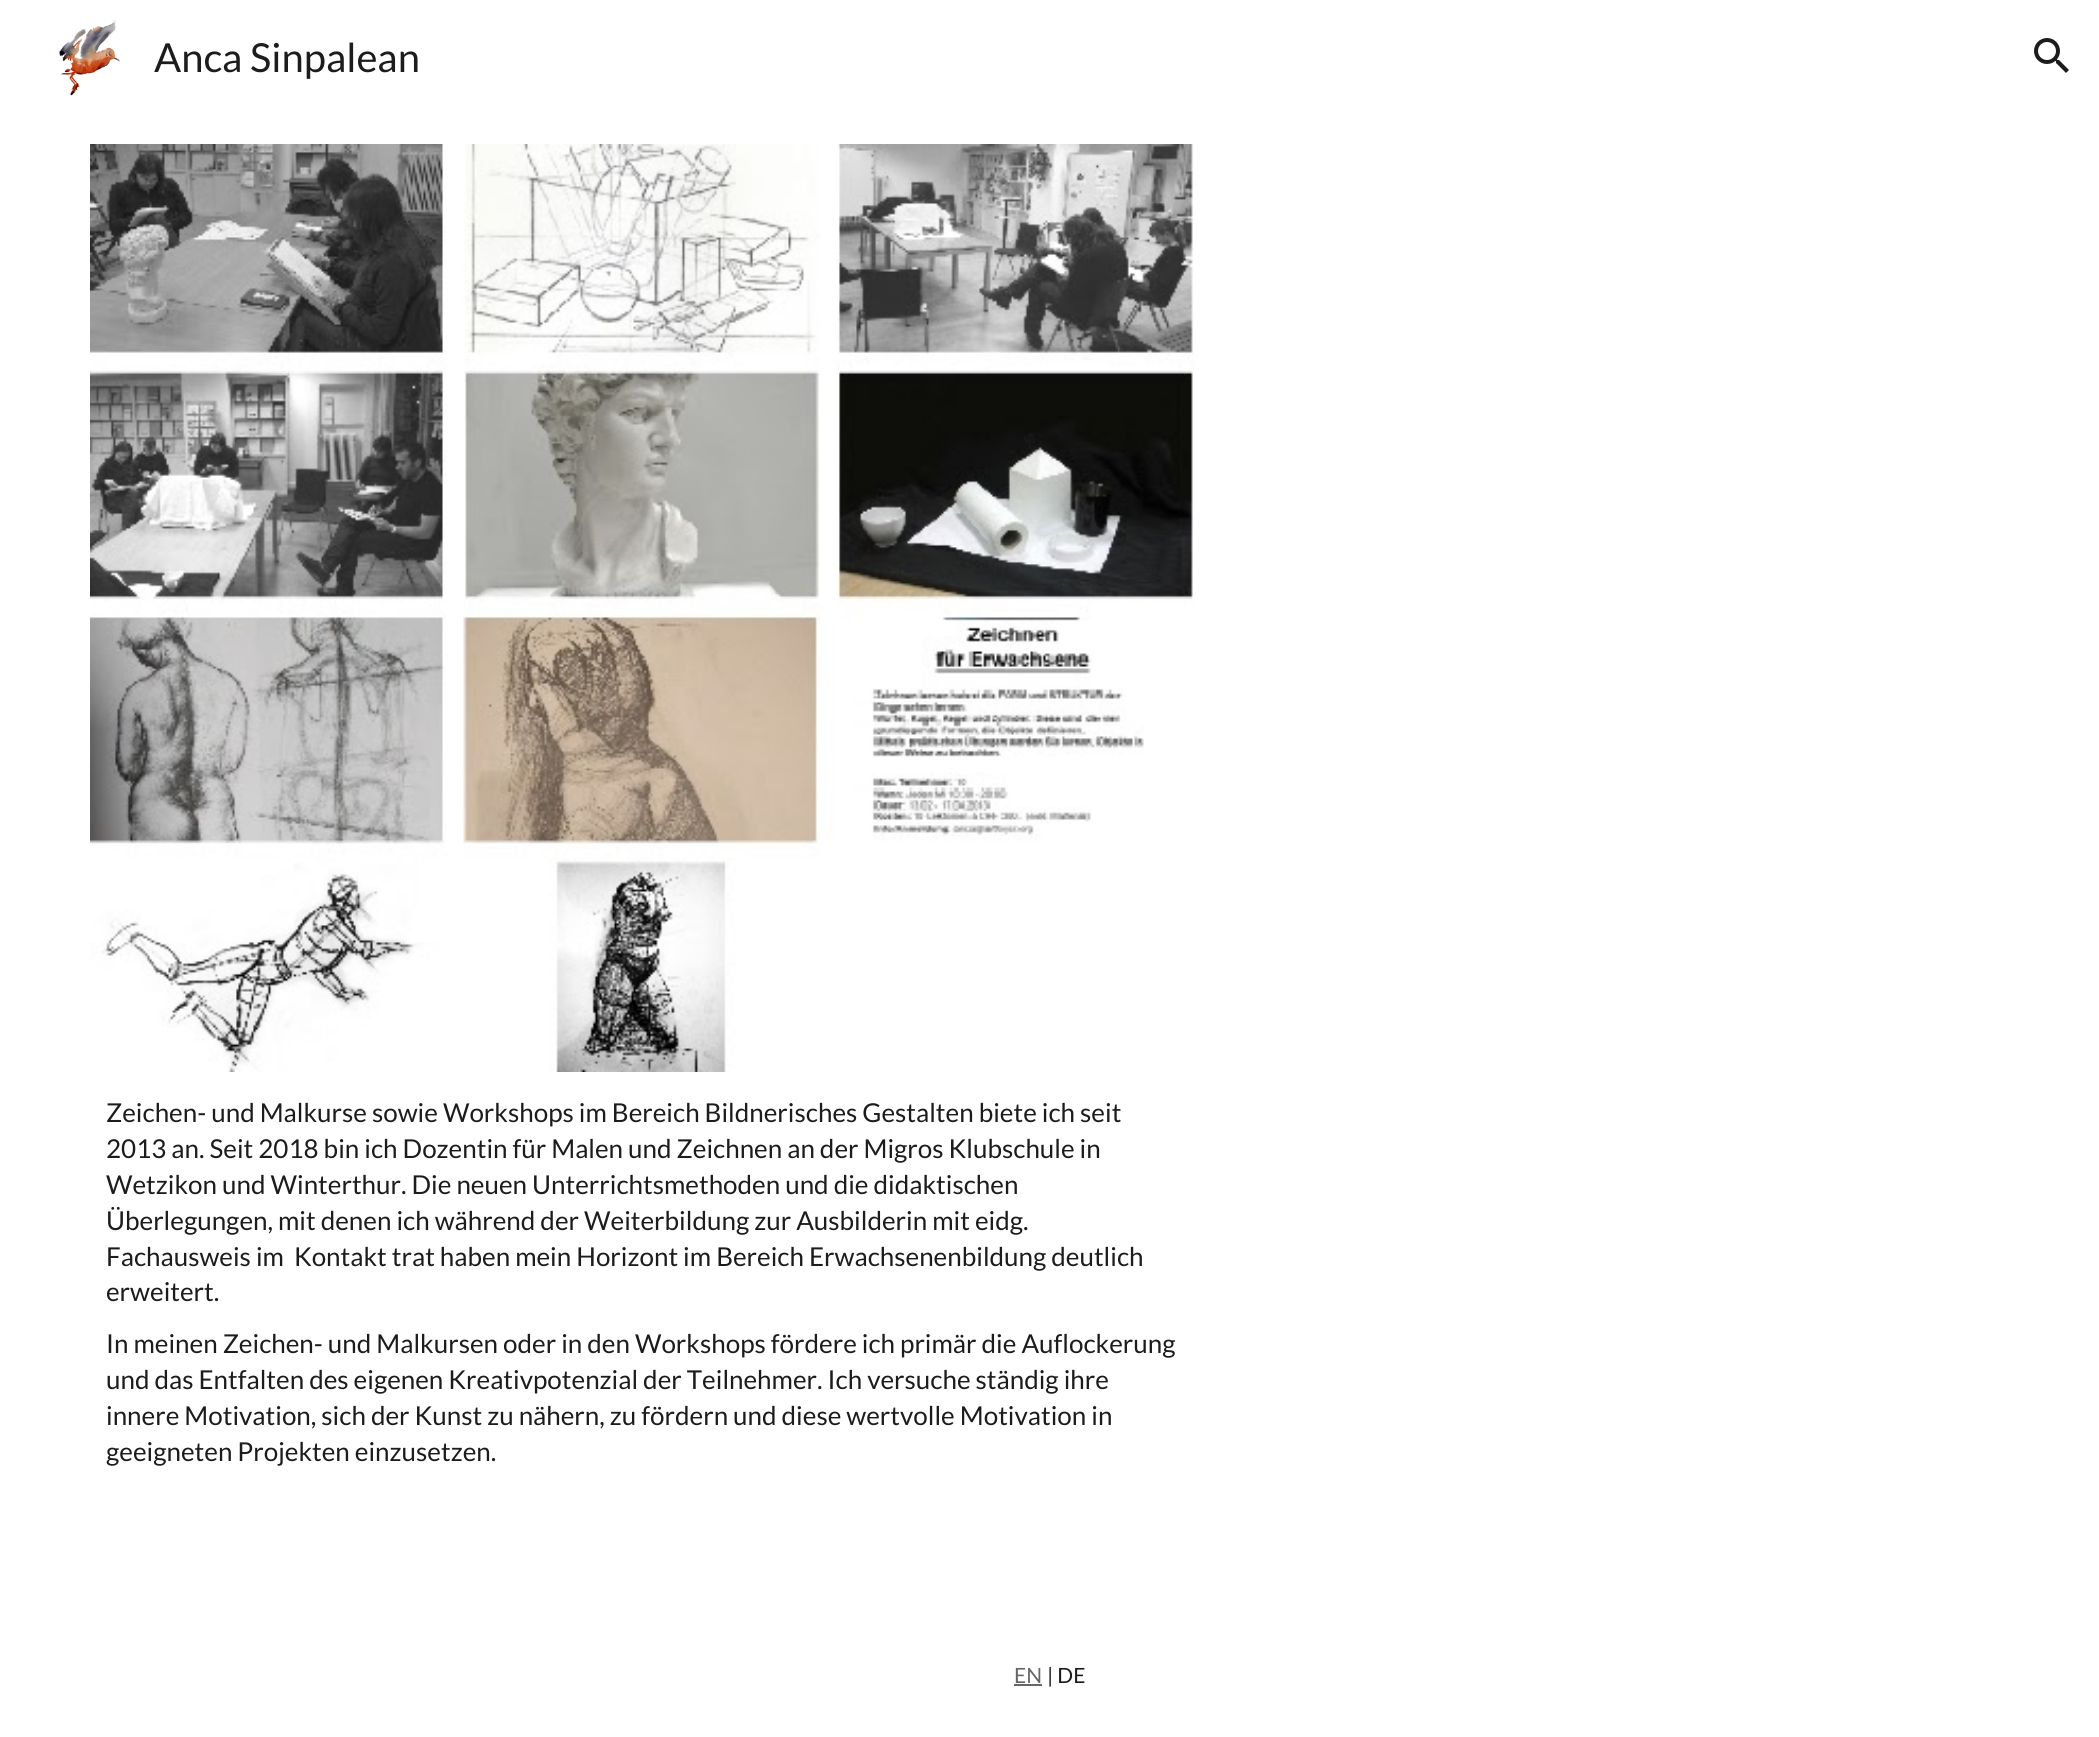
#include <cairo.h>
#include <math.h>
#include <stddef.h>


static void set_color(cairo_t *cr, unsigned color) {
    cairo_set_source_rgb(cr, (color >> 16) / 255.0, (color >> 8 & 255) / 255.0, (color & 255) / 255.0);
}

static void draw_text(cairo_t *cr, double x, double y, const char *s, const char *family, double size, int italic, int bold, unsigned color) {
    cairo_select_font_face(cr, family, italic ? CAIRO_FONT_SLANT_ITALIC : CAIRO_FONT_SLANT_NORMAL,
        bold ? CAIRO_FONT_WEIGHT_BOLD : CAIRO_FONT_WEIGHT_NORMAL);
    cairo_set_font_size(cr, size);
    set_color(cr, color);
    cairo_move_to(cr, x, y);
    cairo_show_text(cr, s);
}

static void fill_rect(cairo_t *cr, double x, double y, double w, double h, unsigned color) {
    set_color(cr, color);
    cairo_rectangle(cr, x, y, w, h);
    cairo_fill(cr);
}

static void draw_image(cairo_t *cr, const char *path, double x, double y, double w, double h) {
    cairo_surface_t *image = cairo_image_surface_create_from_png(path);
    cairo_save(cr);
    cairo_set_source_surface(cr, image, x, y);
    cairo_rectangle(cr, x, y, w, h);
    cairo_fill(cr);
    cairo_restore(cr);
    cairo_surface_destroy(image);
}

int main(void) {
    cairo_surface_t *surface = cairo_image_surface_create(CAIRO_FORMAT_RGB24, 2099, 1737);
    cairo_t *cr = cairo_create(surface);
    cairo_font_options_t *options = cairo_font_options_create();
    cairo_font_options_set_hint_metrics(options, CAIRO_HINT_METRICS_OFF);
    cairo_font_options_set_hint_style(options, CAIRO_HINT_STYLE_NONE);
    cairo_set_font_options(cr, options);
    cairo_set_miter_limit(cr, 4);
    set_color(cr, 0xFFFFFF);
    cairo_paint(cr);
    draw_image(cr, "assets/img1.png", 59, 19, 61, 77);
    draw_text(cr, 154, 72, "Anca Sinpalean", "Lato", 40, 0, 0, 0x1C1C1C);
    draw_image(cr, "assets/img2.png", 2034, 38, 35, 35);
    draw_image(cr, "assets/img3.png", 90, 144, 1104, 928);
    draw_text(cr, 106, 1122, "Zeichen- und Malkurse sowie Workshops im Bereich Bildnerisches Gestalten biete ich seit", "Lato", 26, 0, 0, 0x1C1C1C);
    draw_text(cr, 106, 1158, "2013 an. Seit 2018 bin ich Dozentin für Malen und Zeichnen an der Migros Klubschule in", "Lato", 26, 0, 0, 0x1C1C1C);
    draw_text(cr, 106, 1194, "Wetzikon und Winterthur. Die neuen Unterrichtsmethoden und die didaktischen", "Lato", 26, 0, 0, 0x1C1C1C);
    draw_text(cr, 106, 1230, "Überlegungen, mit denen ich während der Weiterbildung zur Ausbilderin mit eidg.", "Lato", 26, 0, 0, 0x1C1C1C);
    draw_text(cr, 106, 1266, "Fachausweis im  Kontakt trat haben mein Horizont im Bereich Erwachsenenbildung deutlich", "Lato", 26, 0, 0, 0x1C1C1C);
    draw_text(cr, 106, 1301, "erweitert.", "Lato", 26, 0, 0, 0x1C1C1C);
    draw_text(cr, 106, 1353, "In meinen Zeichen- und Malkursen oder in den Workshops fördere ich primär die Auflockerung", "Lato", 26, 0, 0, 0x1C1C1C);
    draw_text(cr, 106, 1389, "und das Entfalten des eigenen Kreativpotenzial der Teilnehmer. Ich versuche ständig ihre", "Lato", 26, 0, 0, 0x1C1C1C);
    draw_text(cr, 106, 1425, "innere Motivation, sich der Kunst zu nähern, zu fördern und diese wertvolle Motivation in", "Lato", 26, 0, 0, 0x1C1C1C);
    draw_text(cr, 106, 1461, "geeigneten Projekten einzusetzen.", "Lato", 26, 0, 0, 0x1C1C1C);
    draw_text(cr, 1014, 1683, "EN", "Lato", 21, 0, 0, 0x666666);
    fill_rect(cr, 1014, 1684, 28, 2, 0x666666);
    draw_text(cr, 1047, 1683, "| DE", "Lato", 21, 0, 0, 0x1C1C1C);
    cairo_surface_write_to_png(surface, "output.png");
    cairo_font_options_destroy(options);
    cairo_destroy(cr);
    cairo_surface_destroy(surface);
    return 0;
}
